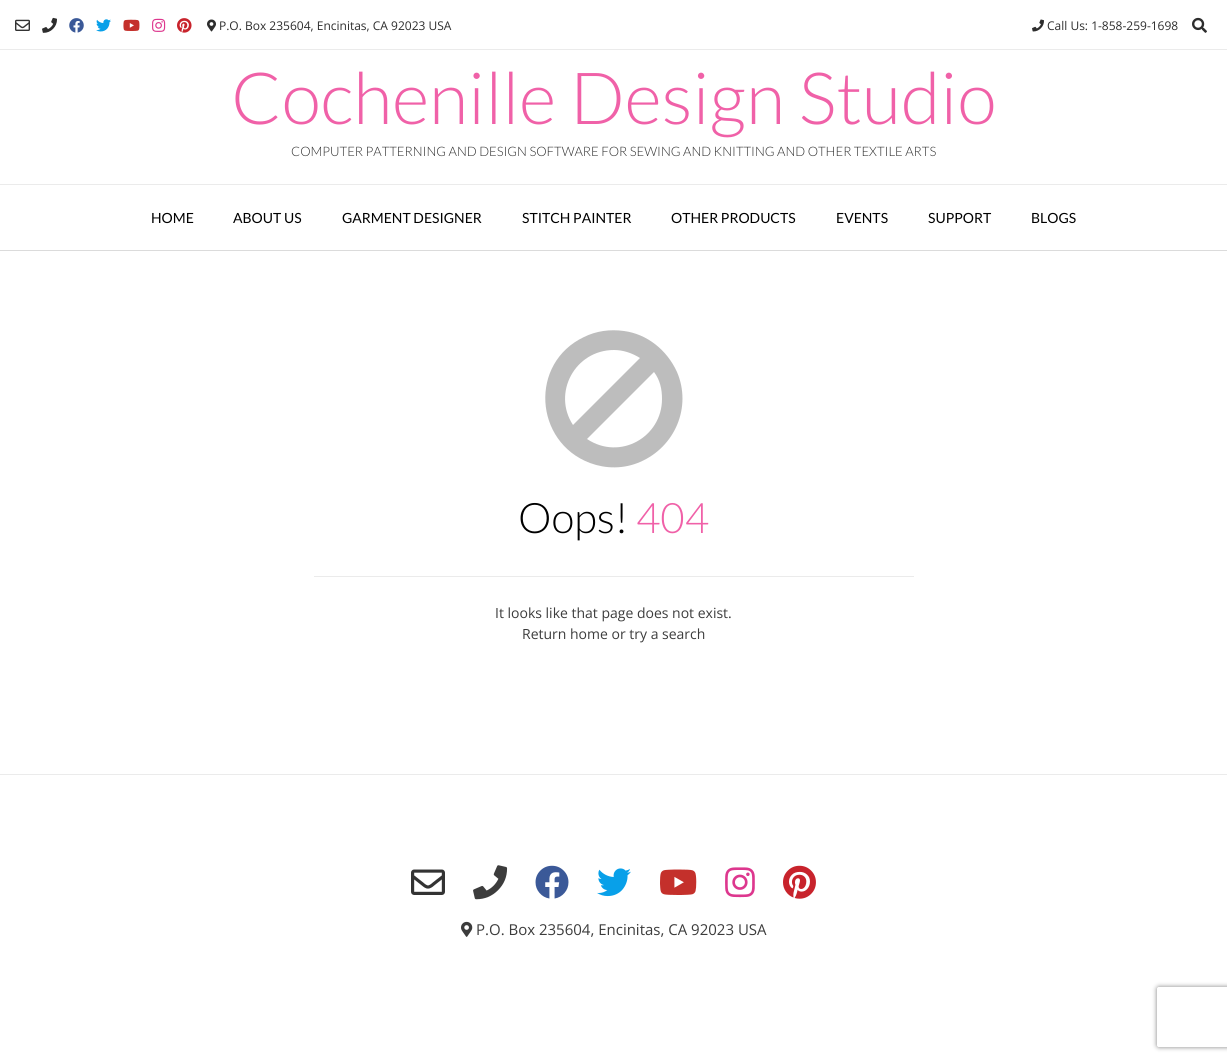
#include <cairo.h>
#include <math.h>
#include <stddef.h>


static void set_color(cairo_t *cr, unsigned color) {
    cairo_set_source_rgb(cr, (color >> 16) / 255.0, (color >> 8 & 255) / 255.0, (color & 255) / 255.0);
}

static void draw_text(cairo_t *cr, double x, double y, const char *s, const char *family, double size, int italic, int bold, unsigned color) {
    cairo_select_font_face(cr, family, italic ? CAIRO_FONT_SLANT_ITALIC : CAIRO_FONT_SLANT_NORMAL,
        bold ? CAIRO_FONT_WEIGHT_BOLD : CAIRO_FONT_WEIGHT_NORMAL);
    cairo_set_font_size(cr, size);
    set_color(cr, color);
    cairo_move_to(cr, x, y);
    cairo_show_text(cr, s);
}

static void fill_rect(cairo_t *cr, double x, double y, double w, double h, unsigned color) {
    set_color(cr, color);
    cairo_rectangle(cr, x, y, w, h);
    cairo_fill(cr);
}

static void rounded_rect(cairo_t *cr, double x, double y, double w, double h, double r) {
    cairo_new_sub_path(cr);
    cairo_arc(cr, x + w - r, y + h - r, r, 0, M_PI / 2);
    cairo_arc(cr, x + r, y + h - r, r, M_PI / 2, M_PI);
    cairo_arc(cr, x + r, y + r, r, M_PI, 1.5 * M_PI);
    cairo_arc(cr, x + w - r, y + r, r, 1.5 * M_PI, 2 * M_PI);
    cairo_close_path(cr);
}

static void draw_shadow(cairo_t *cr, double x, double y, double w, double h, double r, double blur, double alpha) {
    cairo_push_group_with_content(cr, CAIRO_CONTENT_ALPHA);
    cairo_set_operator(cr, CAIRO_OPERATOR_SOURCE);
    for (int i = 15; i >= -15 && fmin(w, h) + blur * i / 3 > 0; i -= 2) {
        double e = blur * i / 6;
        cairo_set_source_rgba(cr, 0, 0, 0, alpha * erfc((i - 1) / 8.5) / 2);
        rounded_rect(cr, x - e, y - e, w + 2 * e, h + 2 * e, fmax(0, fmin(r + e + blur * .6, fmin(w, h) / 2 + e)));
        cairo_fill(cr);
    }
    cairo_pattern_t *soft = cairo_pop_group(cr);
    cairo_mask(cr, soft);
    cairo_pattern_destroy(soft);
}

static void draw_image(cairo_t *cr, const char *path, double x, double y, double w, double h) {
    cairo_surface_t *image = cairo_image_surface_create_from_png(path);
    cairo_save(cr);
    cairo_set_source_surface(cr, image, x, y);
    cairo_rectangle(cr, x, y, w, h);
    cairo_fill(cr);
    cairo_restore(cr);
    cairo_surface_destroy(image);
}

int main(void) {
    cairo_surface_t *surface = cairo_image_surface_create(CAIRO_FORMAT_RGB24, 1227, 1061);
    cairo_t *cr = cairo_create(surface);
    cairo_font_options_t *options = cairo_font_options_create();
    cairo_font_options_set_hint_metrics(options, CAIRO_HINT_METRICS_OFF);
    cairo_font_options_set_hint_style(options, CAIRO_HINT_STYLE_NONE);
    cairo_set_font_options(cr, options);
    cairo_set_miter_limit(cr, 4);
    set_color(cr, 0xFFFFFF);
    cairo_paint(cr);
    fill_rect(cr, 0, 250, 1227, 1, 0xDBDBDB);
    fill_rect(cr, 0, 49, 1227, 1, 0xEBEBEB);
    draw_image(cr, "assets/img1.png", 15, 19, 15, 12);
    draw_image(cr, "assets/img2.png", 42, 17, 15, 16);
    draw_image(cr, "assets/img3.png", 69, 18, 15, 15);
    draw_image(cr, "assets/img4.png", 96, 19, 15, 13);
    draw_image(cr, "assets/img5.png", 123, 19, 17, 12);
    draw_image(cr, "assets/img6.png", 152, 18, 14, 14);
    draw_image(cr, "assets/img7.png", 177, 18, 15, 15);
    draw_image(cr, "assets/img8.png", 207, 19, 9, 13);
    draw_text(cr, 219, 30, "P.O. Box 235604, Encinitas, CA 92023 USA", "Open Sans", 12, 0, 0, 0x2D2D2D);
    draw_image(cr, "assets/img9.png", 1032, 19, 12, 13);
    draw_text(cr, 1047, 30, "Call Us: 1-858-259-1698", "Open Sans", 12, 0, 0, 0x2D2D2D);
    draw_image(cr, "assets/img10.png", 1192, 17, 15, 16);
    draw_text(cr, 231, 124, "Cochenille Design Studio", "Lato Light", 72, 0, 0, 0xF061A8);
    draw_text(cr, 291, 156, "COMPUTER PATTERNING AND DESIGN SOFTWARE FOR SEWING AND KNITTING AND OTHER TEXTILE ARTS", "Lato Light", 13, 0, 0, 0x2D2D2D);
    fill_rect(cr, 0, 184, 1227, 1, 0xEBEBEB);
    draw_text(cr, 151, 223, "HOME", "Lato", 14, 0, 0, 0x000000);
    draw_text(cr, 233, 223, "ABOUT US", "Lato", 14, 0, 0, 0x000000);
    draw_text(cr, 342, 223, "GARMENT DESIGNER", "Lato", 14, 0, 0, 0x000000);
    draw_text(cr, 522, 223, "STITCH PAINTER", "Lato", 14, 0, 0, 0x000000);
    draw_text(cr, 671, 223, "OTHER PRODUCTS", "Lato", 14, 0, 0, 0x000000);
    draw_text(cr, 836, 223, "EVENTS", "Lato", 14, 0, 0, 0x000000);
    draw_text(cr, 928, 223, "SUPPORT", "Lato", 14, 0, 0, 0x000000);
    draw_text(cr, 1031, 223, "BLOGS", "Lato", 14, 0, 0, 0x000000);
    set_color(cr, 0xBDBDBD);
    cairo_new_path(cr);
    cairo_move_to(cr, 662, 399);
    cairo_curve_to(cr, 662, 389, 660, 380, 654, 372);
    cairo_line_to(cr, 587, 439);
    cairo_curve_to(cr, 620, 461, 662, 437, 662, 399);
    cairo_close_path(cr);
    cairo_move_to(cr, 573, 425);
    cairo_line_to(cr, 640, 358);
    cairo_curve_to(cr, 632, 353, 623, 350, 614, 350);
    cairo_curve_to(cr, 575, 350, 552, 393, 573, 425);
    cairo_close_path(cr);
    cairo_move_to(cr, 677, 372);
    cairo_curve_to(cr, 692, 407, 675, 447, 640, 462);
    cairo_curve_to(cr, 624, 469, 606, 469, 590, 463);
    cairo_curve_to(cr, 534, 442, 529, 363, 584, 337);
    cairo_curve_to(cr, 596, 331, 610, 329, 624, 331);
    cairo_curve_to(cr, 647, 334, 667, 350, 677, 372);
    cairo_close_path(cr);
    cairo_fill(cr);
    fill_rect(cr, 314, 576, 600, 1, 0xEBEBEB);
    draw_text(cr, 518, 533, "Oops!", "Lato Light", 42, 0, 0, 0x000000);
    draw_text(cr, 636, 533, "404", "Lato Light", 42, 0, 0, 0xF061A8);
    draw_text(cr, 495, 618, "It looks like that page does not exist.", "Open Sans", 14, 0, 0, 0x3C3C3C);
    draw_text(cr, 522, 639, "Return home or try a search", "Open Sans", 14, 0, 0, 0x3C3C3C);
    fill_rect(cr, 0, 774, 1227, 1, 0xEBEBEB);
    draw_image(cr, "assets/img11.png", 411, 869, 34, 26);
    draw_image(cr, "assets/img12.png", 473, 865, 35, 35);
    draw_image(cr, "assets/img13.png", 535, 865, 34, 34);
    draw_image(cr, "assets/img14.png", 597, 868, 34, 29);
    draw_image(cr, "assets/img15.png", 660, 869, 37, 26);
    draw_image(cr, "assets/img16.png", 725, 867, 30, 31);
    draw_image(cr, "assets/img17.png", 783, 865, 33, 34);
    draw_image(cr, "assets/img18.png", 461, 921, 12, 16);
    draw_text(cr, 476, 935, "P.O. Box 235604, Encinitas, CA 92023 USA", "Open Sans", 15, 0, 0, 0x3C3C3C);
    cairo_save(cr);
    cairo_set_fill_rule(cr, CAIRO_FILL_RULE_EVEN_ODD);
    cairo_new_path(cr);
    cairo_move_to(cr, 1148, 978);
    cairo_line_to(cr, 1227, 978);
    cairo_line_to(cr, 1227, 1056);
    cairo_line_to(cr, 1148, 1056);
    cairo_close_path(cr);
    cairo_move_to(cr, 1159, 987);
    cairo_line_to(cr, 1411, 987);
    cairo_curve_to(cr, 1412, 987, 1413, 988, 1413, 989);
    cairo_line_to(cr, 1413, 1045);
    cairo_curve_to(cr, 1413, 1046, 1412, 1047, 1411, 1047);
    cairo_line_to(cr, 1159, 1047);
    cairo_curve_to(cr, 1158, 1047, 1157, 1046, 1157, 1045);
    cairo_line_to(cr, 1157, 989);
    cairo_curve_to(cr, 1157, 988, 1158, 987, 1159, 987);
    cairo_close_path(cr);
    cairo_clip(cr);
    set_color(cr, 0x808080);
    draw_shadow(cr, 1157, 987, 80, 60, 2, 2.5, 1);
    cairo_restore(cr);
    cairo_surface_write_to_png(surface, "output.png");
    cairo_font_options_destroy(options);
    cairo_destroy(cr);
    cairo_surface_destroy(surface);
    return 0;
}
